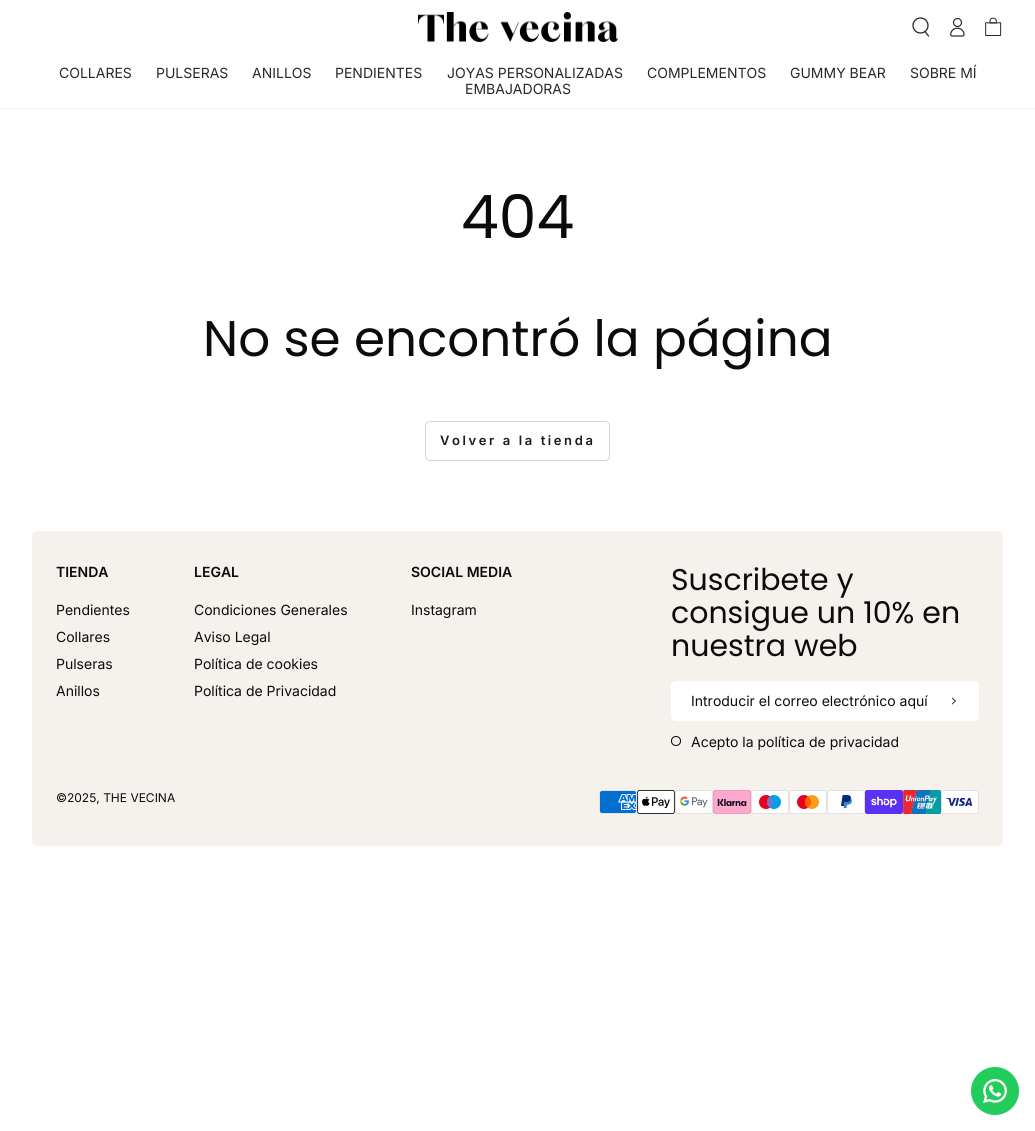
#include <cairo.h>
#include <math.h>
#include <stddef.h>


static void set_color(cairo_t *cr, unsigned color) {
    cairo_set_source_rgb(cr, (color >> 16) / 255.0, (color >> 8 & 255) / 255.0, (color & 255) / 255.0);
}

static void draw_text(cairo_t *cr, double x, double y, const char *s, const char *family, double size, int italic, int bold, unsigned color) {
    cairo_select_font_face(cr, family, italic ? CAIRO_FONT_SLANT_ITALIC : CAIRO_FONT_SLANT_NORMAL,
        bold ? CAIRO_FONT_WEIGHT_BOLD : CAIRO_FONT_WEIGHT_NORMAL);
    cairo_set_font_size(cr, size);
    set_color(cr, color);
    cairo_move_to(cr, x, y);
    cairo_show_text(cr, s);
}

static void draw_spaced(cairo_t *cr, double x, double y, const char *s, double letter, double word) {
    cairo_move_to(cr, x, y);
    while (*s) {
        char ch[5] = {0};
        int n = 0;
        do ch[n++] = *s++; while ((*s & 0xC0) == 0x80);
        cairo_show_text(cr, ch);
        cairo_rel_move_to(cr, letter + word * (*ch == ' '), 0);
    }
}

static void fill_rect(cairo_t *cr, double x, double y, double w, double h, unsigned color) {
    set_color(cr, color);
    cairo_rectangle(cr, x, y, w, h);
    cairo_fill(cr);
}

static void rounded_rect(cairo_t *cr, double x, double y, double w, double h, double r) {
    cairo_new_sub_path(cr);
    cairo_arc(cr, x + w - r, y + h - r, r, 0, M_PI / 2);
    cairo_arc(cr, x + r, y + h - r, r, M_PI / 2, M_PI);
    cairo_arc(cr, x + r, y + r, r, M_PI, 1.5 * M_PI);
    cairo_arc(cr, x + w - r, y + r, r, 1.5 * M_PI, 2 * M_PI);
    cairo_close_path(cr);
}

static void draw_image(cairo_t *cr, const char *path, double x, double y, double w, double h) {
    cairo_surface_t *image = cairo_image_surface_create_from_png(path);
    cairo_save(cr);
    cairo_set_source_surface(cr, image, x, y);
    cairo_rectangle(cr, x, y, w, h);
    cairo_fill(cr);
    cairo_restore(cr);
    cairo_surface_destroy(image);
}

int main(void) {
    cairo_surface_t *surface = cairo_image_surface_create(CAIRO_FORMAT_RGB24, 1035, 1131);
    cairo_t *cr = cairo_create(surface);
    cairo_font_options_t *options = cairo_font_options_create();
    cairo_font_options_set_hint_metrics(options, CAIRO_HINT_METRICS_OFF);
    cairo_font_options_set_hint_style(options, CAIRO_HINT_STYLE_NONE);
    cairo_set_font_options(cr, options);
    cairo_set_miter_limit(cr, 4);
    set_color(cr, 0xFFFFFF);
    cairo_paint(cr);
    fill_rect(cr, 0, 108, 1035, 1, 0xF2F2F4);
    draw_image(cr, "assets/img1.png", 418, 12, 200, 30);
    cairo_arc(cr, 920.5, 25.5, 7.5, 0, 2 * M_PI);
    set_color(cr, 0x282828);
    cairo_set_line_width(cr, 1.3);
    cairo_stroke(cr);
    cairo_new_path(cr);
    cairo_move_to(cr, 925, 31.5);
    cairo_line_to(cr, 928.5, 36);
    cairo_set_line_cap(cr, CAIRO_LINE_CAP_ROUND);
    cairo_stroke(cr);
    draw_image(cr, "assets/img2.png", 950, 17, 15, 20);
    draw_image(cr, "assets/img3.png", 985, 17, 17, 19);
    draw_text(cr, 59, 78, "COLLARES", "Inter", 14, 0, 0, 0x282828);
    draw_text(cr, 156, 78, "PULSERAS", "Inter", 14, 0, 0, 0x282828);
    draw_text(cr, 252, 78, "ANILLOS", "Inter", 14, 0, 0, 0x282828);
    draw_text(cr, 335, 78, "PENDIENTES", "Inter", 14, 0, 0, 0x282828);
    draw_text(cr, 447, 78, "JOYAS PERSONALIZADAS", "Inter", 14, 0, 0, 0x282828);
    draw_text(cr, 647, 78, "COMPLEMENTOS", "Inter", 14, 0, 0, 0x282828);
    draw_text(cr, 790, 78, "GUMMY BEAR", "Inter", 14, 0, 0, 0x282828);
    draw_text(cr, 910, 78, "SOBRE MÍ", "Inter", 14, 0, 0, 0x282828);
    draw_text(cr, 465, 94, "EMBAJADORAS", "Inter", 14, 0, 0, 0x282828);
    draw_text(cr, 461, 238, "404", "Poppins", 60, 0, 0, 0x0A0B0A);
    draw_text(cr, 203, 356, "No se encontró la página", "Poppins", 50, 0, 0, 0x0A0B0A);
    rounded_rect(cr, 425.5, 421.5, 184, 39, 4.5);
    set_color(cr, 0xD2D5D9);
    cairo_set_line_width(cr, 1);
    cairo_set_line_cap(cr, CAIRO_LINE_CAP_BUTT);
    cairo_stroke(cr);
    cairo_select_font_face(cr, "Inter SemiBold", CAIRO_FONT_SLANT_NORMAL, CAIRO_FONT_WEIGHT_NORMAL);
    cairo_set_font_size(cr, 13);
    set_color(cr, 0x1A1B18);
    draw_spaced(cr, 440, 445, "Volver a la tienda", 2.6, 0);
    set_color(cr, 0xF5F1EC);
    rounded_rect(cr, 32, 531, 971, 315, 5);
    cairo_fill(cr);
    draw_text(cr, 56, 577, "TIENDA", "Inter SemiBold", 14, 0, 0, 0x0A0B0A);
    draw_text(cr, 56, 615, "Pendientes", "Inter", 14, 0, 0, 0x0A0B0A);
    draw_text(cr, 56, 642, "Collares", "Inter", 14, 0, 0, 0x0A0B0A);
    draw_text(cr, 56, 669, "Pulseras", "Inter", 14, 0, 0, 0x0A0B0A);
    draw_text(cr, 56, 696, "Anillos", "Inter", 14, 0, 0, 0x0A0B0A);
    draw_text(cr, 194, 577, "LEGAL", "Inter SemiBold", 14, 0, 0, 0x0A0B0A);
    draw_text(cr, 194, 615, "Condiciones Generales", "Inter", 14, 0, 0, 0x0A0B0A);
    draw_text(cr, 194, 642, "Aviso Legal", "Inter", 14, 0, 0, 0x0A0B0A);
    draw_text(cr, 194, 669, "Política de cookies", "Inter", 14, 0, 0, 0x0A0B0A);
    draw_text(cr, 194, 696, "Política de Privacidad", "Inter", 14, 0, 0, 0x0A0B0A);
    draw_text(cr, 411, 577, "SOCIAL MEDIA", "Inter SemiBold", 14, 0, 0, 0x0A0B0A);
    draw_text(cr, 411, 615, "Instagram", "Inter", 14, 0, 0, 0x0A0B0A);
    draw_text(cr, 671, 590, "Suscribete y", "Poppins", 30, 0, 0, 0x0A0B0A);
    draw_text(cr, 671, 623, "consigue un 10% en", "Poppins", 30, 0, 0, 0x0A0B0A);
    draw_text(cr, 671, 656, "nuestra web", "Poppins", 30, 0, 0, 0x0A0B0A);
    set_color(cr, 0xFFFFFF);
    rounded_rect(cr, 671, 681, 308, 40, 5);
    cairo_fill(cr);
    draw_text(cr, 691, 706, "Introducir el correo electrónico aquí", "Inter", 14, 0, 0, 0x0A0B0A);
    cairo_save(cr);
    cairo_rectangle(cr, 952, 696, 7, 10);
    cairo_clip(cr);
    cairo_new_path(cr);
    cairo_move_to(cr, 951, 705);
    cairo_line_to(cr, 955.5, 701);
    cairo_line_to(cr, 951, 697);
    cairo_set_line_width(cr, 0.8);
    cairo_stroke(cr);
    cairo_restore(cr);
    cairo_arc(cr, 676, 741, 4.5, 0, 2 * M_PI);
    set_color(cr, 0x000000);
    cairo_stroke(cr);
    draw_text(cr, 691, 747, "Acepto la política de privacidad", "Inter", 14, 0, 0, 0x0A0B0A);
    draw_text(cr, 56, 802, "©2025, THE VECINA", "Inter", 12, 0, 0, 0x0A0B0A);
    draw_image(cr, "assets/img4.png", 599, 790, 38, 24);
    draw_image(cr, "assets/img5.png", 637, 790, 38, 24);
    draw_image(cr, "assets/img6.png", 675, 790, 38, 24);
    draw_image(cr, "assets/img7.png", 713, 790, 38, 24);
    draw_image(cr, "assets/img8.png", 751, 790, 38, 24);
    draw_image(cr, "assets/img9.png", 789, 790, 38, 24);
    draw_image(cr, "assets/img10.png", 827, 790, 38, 24);
    draw_image(cr, "assets/img11.png", 865, 790, 38, 24);
    draw_image(cr, "assets/img12.png", 903, 790, 38, 24);
    draw_image(cr, "assets/img13.png", 941, 790, 38, 24);
    set_color(cr, 0x22CD5B);
    cairo_arc(cr, 995, 1091, 24, 0, 2 * M_PI);
    cairo_fill(cr);
    draw_image(cr, "assets/img14.png", 983, 1079, 24, 24);
    cairo_surface_write_to_png(surface, "output.png");
    cairo_font_options_destroy(options);
    cairo_destroy(cr);
    cairo_surface_destroy(surface);
    return 0;
}
